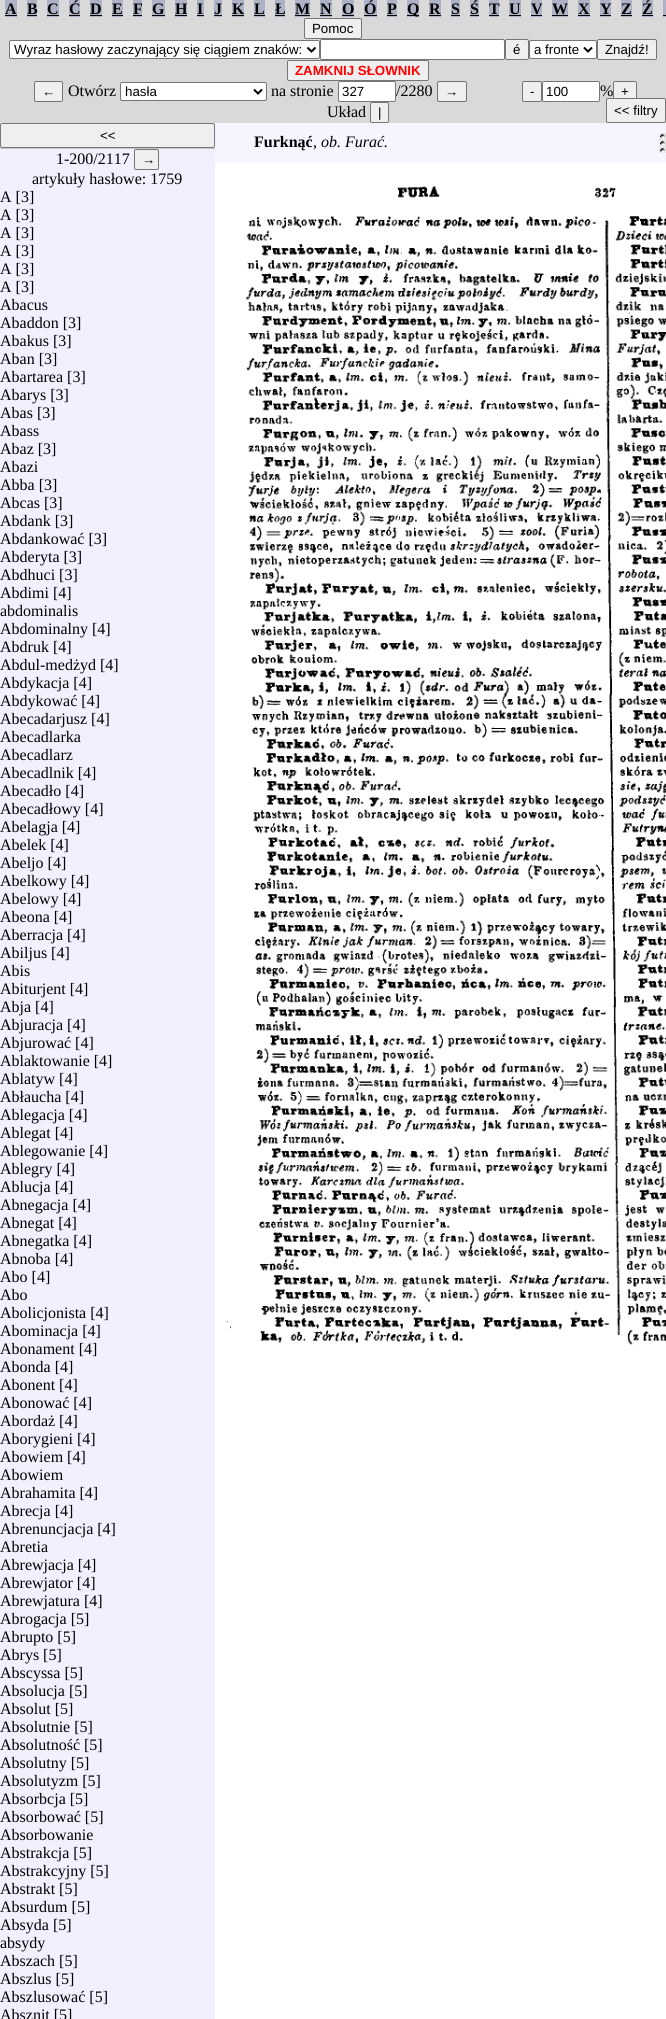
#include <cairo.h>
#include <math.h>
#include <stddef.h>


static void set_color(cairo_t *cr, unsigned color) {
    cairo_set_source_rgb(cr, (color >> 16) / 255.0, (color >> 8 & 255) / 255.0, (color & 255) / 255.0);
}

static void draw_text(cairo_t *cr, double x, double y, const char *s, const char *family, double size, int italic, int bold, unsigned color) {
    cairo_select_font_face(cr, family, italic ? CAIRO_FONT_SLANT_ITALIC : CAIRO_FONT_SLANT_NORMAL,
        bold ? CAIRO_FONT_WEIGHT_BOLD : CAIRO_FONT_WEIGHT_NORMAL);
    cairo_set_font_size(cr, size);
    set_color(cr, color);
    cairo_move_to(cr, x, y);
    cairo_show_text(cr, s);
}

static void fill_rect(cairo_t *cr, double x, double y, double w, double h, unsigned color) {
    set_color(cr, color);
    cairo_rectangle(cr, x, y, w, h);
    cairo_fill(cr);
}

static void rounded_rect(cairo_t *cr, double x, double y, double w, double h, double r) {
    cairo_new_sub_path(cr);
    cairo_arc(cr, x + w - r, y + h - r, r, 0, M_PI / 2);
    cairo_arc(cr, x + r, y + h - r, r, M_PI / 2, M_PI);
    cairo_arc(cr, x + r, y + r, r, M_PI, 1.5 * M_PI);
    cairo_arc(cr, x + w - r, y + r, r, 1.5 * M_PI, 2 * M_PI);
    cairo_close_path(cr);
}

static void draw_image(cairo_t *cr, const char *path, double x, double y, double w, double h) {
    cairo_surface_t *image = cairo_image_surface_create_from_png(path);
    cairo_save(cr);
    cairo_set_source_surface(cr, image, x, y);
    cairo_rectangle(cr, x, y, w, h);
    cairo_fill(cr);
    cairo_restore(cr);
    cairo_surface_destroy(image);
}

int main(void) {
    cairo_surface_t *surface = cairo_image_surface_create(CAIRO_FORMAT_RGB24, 666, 2019);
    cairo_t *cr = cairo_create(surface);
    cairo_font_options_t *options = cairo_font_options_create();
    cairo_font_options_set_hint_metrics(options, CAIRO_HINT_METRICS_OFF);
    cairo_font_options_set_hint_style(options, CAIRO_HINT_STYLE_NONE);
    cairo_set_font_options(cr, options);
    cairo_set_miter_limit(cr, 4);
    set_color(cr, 0xFFFFFF);
    cairo_paint(cr);
    fill_rect(cr, 0, 0, 666, 123, 0xD9D9D9);
    fill_rect(cr, 5, 0, 12, 17, 0xAEB2C7);
    draw_text(cr, 5, 14, "A", "Liberation Serif", 16, 0, 1, 0x000000);
    fill_rect(cr, 5, 15, 12, 1, 0x000000);
    fill_rect(cr, 27, 0, 10, 17, 0xAEB2C7);
    draw_text(cr, 27, 14, "B", "Liberation Serif", 16, 0, 1, 0x000000);
    fill_rect(cr, 27, 15, 10, 1, 0x000000);
    fill_rect(cr, 47, 0, 12, 17, 0xAEB2C7);
    draw_text(cr, 47, 14, "C", "Liberation Serif", 16, 0, 1, 0x000000);
    fill_rect(cr, 47, 15, 12, 1, 0x000000);
    fill_rect(cr, 69, 0, 11, 17, 0xAEB2C7);
    draw_text(cr, 69, 14, "Ć", "Liberation Serif", 16, 0, 1, 0x000000);
    fill_rect(cr, 69, 15, 11, 1, 0x000000);
    fill_rect(cr, 90, 0, 12, 17, 0xAEB2C7);
    draw_text(cr, 90, 14, "D", "Liberation Serif", 16, 0, 1, 0x000000);
    fill_rect(cr, 90, 15, 12, 1, 0x000000);
    fill_rect(cr, 112, 0, 11, 17, 0xAEB2C7);
    draw_text(cr, 112, 14, "E", "Liberation Serif", 16, 0, 1, 0x000000);
    fill_rect(cr, 112, 15, 11, 1, 0x000000);
    fill_rect(cr, 133, 0, 9, 17, 0xAEB2C7);
    draw_text(cr, 133, 14, "F", "Liberation Serif", 16, 0, 1, 0x000000);
    fill_rect(cr, 133, 15, 9, 1, 0x000000);
    fill_rect(cr, 152, 0, 13, 17, 0xAEB2C7);
    draw_text(cr, 152, 14, "G", "Liberation Serif", 16, 0, 1, 0x000000);
    fill_rect(cr, 152, 15, 13, 1, 0x000000);
    fill_rect(cr, 175, 0, 12, 17, 0xAEB2C7);
    draw_text(cr, 175, 14, "H", "Liberation Serif", 16, 0, 1, 0x000000);
    fill_rect(cr, 175, 15, 12, 1, 0x000000);
    fill_rect(cr, 197, 0, 7, 17, 0xAEB2C7);
    draw_text(cr, 197, 14, "I", "Liberation Serif", 16, 0, 1, 0x000000);
    fill_rect(cr, 197, 15, 7, 1, 0x000000);
    fill_rect(cr, 214, 0, 8, 17, 0xAEB2C7);
    draw_text(cr, 214, 14, "J", "Liberation Serif", 16, 0, 1, 0x000000);
    fill_rect(cr, 214, 15, 8, 1, 0x000000);
    fill_rect(cr, 232, 0, 12, 17, 0xAEB2C7);
    draw_text(cr, 232, 14, "K", "Liberation Serif", 16, 0, 1, 0x000000);
    fill_rect(cr, 232, 15, 12, 1, 0x000000);
    fill_rect(cr, 254, 0, 11, 17, 0xAEB2C7);
    draw_text(cr, 254, 14, "L", "Liberation Serif", 16, 0, 1, 0x000000);
    fill_rect(cr, 254, 15, 11, 1, 0x000000);
    fill_rect(cr, 275, 0, 10, 17, 0xAEB2C7);
    draw_text(cr, 275, 14, "Ł", "Liberation Serif", 16, 0, 1, 0x000000);
    fill_rect(cr, 275, 15, 10, 1, 0x000000);
    fill_rect(cr, 295, 0, 15, 17, 0xAEB2C7);
    draw_text(cr, 295, 14, "M", "Liberation Serif", 16, 0, 1, 0x000000);
    fill_rect(cr, 295, 15, 15, 1, 0x000000);
    fill_rect(cr, 320, 0, 12, 17, 0xAEB2C7);
    draw_text(cr, 320, 14, "N", "Liberation Serif", 16, 0, 1, 0x000000);
    fill_rect(cr, 320, 15, 12, 1, 0x000000);
    fill_rect(cr, 342, 0, 12, 17, 0xAEB2C7);
    draw_text(cr, 342, 14, "O", "Liberation Serif", 16, 0, 1, 0x000000);
    fill_rect(cr, 342, 15, 12, 1, 0x000000);
    fill_rect(cr, 364, 0, 13, 17, 0xAEB2C7);
    draw_text(cr, 364, 14, "Ó", "Liberation Serif", 16, 0, 1, 0x000000);
    fill_rect(cr, 364, 15, 13, 1, 0x000000);
    fill_rect(cr, 387, 0, 10, 17, 0xAEB2C7);
    draw_text(cr, 387, 14, "P", "Liberation Serif", 16, 0, 1, 0x000000);
    fill_rect(cr, 387, 15, 10, 1, 0x000000);
    fill_rect(cr, 407, 0, 12, 17, 0xAEB2C7);
    fill_rect(cr, 407, 15, 12, 1, 0x000000);
    draw_text(cr, 407, 14, "Q", "Liberation Serif", 16, 0, 1, 0x000000);
    fill_rect(cr, 429, 0, 12, 17, 0xAEB2C7);
    draw_text(cr, 429, 14, "R", "Liberation Serif", 16, 0, 1, 0x000000);
    fill_rect(cr, 429, 15, 12, 1, 0x000000);
    fill_rect(cr, 451, 0, 9, 17, 0xAEB2C7);
    draw_text(cr, 451, 14, "S", "Liberation Serif", 16, 0, 1, 0x000000);
    fill_rect(cr, 451, 15, 9, 1, 0x000000);
    fill_rect(cr, 470, 0, 9, 17, 0xAEB2C7);
    draw_text(cr, 470, 14, "Ś", "Liberation Serif", 16, 0, 1, 0x000000);
    fill_rect(cr, 470, 15, 9, 1, 0x000000);
    fill_rect(cr, 489, 0, 10, 17, 0xAEB2C7);
    draw_text(cr, 489, 14, "T", "Liberation Serif", 16, 0, 1, 0x000000);
    fill_rect(cr, 489, 15, 10, 1, 0x000000);
    fill_rect(cr, 509, 0, 12, 17, 0xAEB2C7);
    draw_text(cr, 509, 14, "U", "Liberation Serif", 16, 0, 1, 0x000000);
    fill_rect(cr, 509, 15, 12, 1, 0x000000);
    fill_rect(cr, 531, 0, 11, 17, 0xAEB2C7);
    draw_text(cr, 531, 14, "V", "Liberation Serif", 16, 0, 1, 0x000000);
    fill_rect(cr, 531, 15, 11, 1, 0x000000);
    fill_rect(cr, 552, 0, 16, 17, 0xAEB2C7);
    draw_text(cr, 552, 14, "W", "Liberation Serif", 16, 0, 1, 0x000000);
    fill_rect(cr, 552, 15, 16, 1, 0x000000);
    fill_rect(cr, 578, 0, 12, 17, 0xAEB2C7);
    draw_text(cr, 578, 14, "X", "Liberation Serif", 16, 0, 1, 0x000000);
    fill_rect(cr, 578, 15, 12, 1, 0x000000);
    fill_rect(cr, 600, 0, 11, 17, 0xAEB2C7);
    draw_text(cr, 600, 14, "Y", "Liberation Serif", 16, 0, 1, 0x000000);
    fill_rect(cr, 600, 15, 11, 1, 0x000000);
    fill_rect(cr, 621, 0, 11, 17, 0xAEB2C7);
    draw_text(cr, 621, 14, "Z", "Liberation Serif", 16, 0, 1, 0x000000);
    fill_rect(cr, 621, 15, 11, 1, 0x000000);
    fill_rect(cr, 642, 0, 11, 17, 0xAEB2C7);
    draw_text(cr, 642, 14, "Ź", "Liberation Serif", 16, 0, 1, 0x000000);
    fill_rect(cr, 663, 0, 3, 17, 0xAEB2C7);
    fill_rect(cr, 642, 15, 11, 1, 0x000000);
    fill_rect(cr, 663, 15, 3, 1, 0x000000);
    set_color(cr, 0xEFEFEF);
    rounded_rect(cr, 304.5, 18.5, 57, 20, 1.5);
    cairo_fill_preserve(cr);
    set_color(cr, 0x767676);
    cairo_set_line_width(cr, 1);
    cairo_stroke(cr);
    draw_text(cr, 312, 33, "Pomoc", "Liberation Sans", 13.3, 0, 0, 0x000000);
    set_color(cr, 0xFFFFFF);
    rounded_rect(cr, 9.5, 40.5, 310, 18, 1.5);
    cairo_fill_preserve(cr);
    set_color(cr, 0x767676);
    cairo_stroke(cr);
    cairo_new_path(cr);
    cairo_move_to(cr, 307.5, 47.5);
    cairo_line_to(cr, 311.5, 51.5);
    cairo_line_to(cr, 315.5, 47.5);
    set_color(cr, 0x000000);
    cairo_set_line_width(cr, 2);
    cairo_stroke(cr);
    draw_text(cr, 14, 54, "Wyraz hasłowy zaczynający się ciągiem znaków:", "Liberation Sans", 13.3, 0, 0, 0x000000);
    set_color(cr, 0xFFFFFF);
    rounded_rect(cr, 320.5, 39.5, 184, 20, 1.5);
    cairo_fill_preserve(cr);
    set_color(cr, 0x767676);
    cairo_set_line_width(cr, 1);
    cairo_stroke(cr);
    set_color(cr, 0xEFEFEF);
    rounded_rect(cr, 505.5, 39.5, 23, 20, 1.5);
    cairo_fill_preserve(cr);
    set_color(cr, 0x767676);
    cairo_stroke(cr);
    draw_text(cr, 513, 54, "é", "Liberation Sans", 13.3, 0, 0, 0x000000);
    set_color(cr, 0xFFFFFF);
    rounded_rect(cr, 529.5, 40.5, 67, 18, 1.5);
    cairo_fill_preserve(cr);
    set_color(cr, 0x767676);
    cairo_stroke(cr);
    cairo_new_path(cr);
    cairo_move_to(cr, 584, 47.5);
    cairo_line_to(cr, 588, 51.5);
    cairo_line_to(cr, 592, 47.5);
    set_color(cr, 0x000000);
    cairo_set_line_width(cr, 2);
    cairo_stroke(cr);
    draw_text(cr, 534, 54, "a fronte", "Liberation Sans", 13.3, 0, 0, 0x000000);
    set_color(cr, 0xEFEFEF);
    rounded_rect(cr, 597.5, 39.5, 59, 20, 1.5);
    cairo_fill_preserve(cr);
    set_color(cr, 0x767676);
    cairo_set_line_width(cr, 1);
    cairo_stroke(cr);
    draw_text(cr, 605, 54, "Znajdź!", "Liberation Sans", 13.3, 0, 0, 0x000000);
    set_color(cr, 0xEFEFEF);
    rounded_rect(cr, 287.5, 60.5, 141, 20, 1.5);
    cairo_fill_preserve(cr);
    set_color(cr, 0x767676);
    cairo_stroke(cr);
    draw_text(cr, 295, 75, "ZAMKNIJ SŁOWNIK", "Liberation Sans", 13.3, 0, 1, 0xFF0000);
    set_color(cr, 0xEFEFEF);
    rounded_rect(cr, 34.5, 81.5, 28, 20, 1.5);
    cairo_fill_preserve(cr);
    set_color(cr, 0x767676);
    cairo_stroke(cr);
    draw_text(cr, 42, 96, "←", "Liberation Sans", 13.3, 0, 0, 0x000000);
    draw_text(cr, 68, 96, "Otwórz", "Liberation Serif", 16, 0, 0, 0x000000);
    set_color(cr, 0xFFFFFF);
    rounded_rect(cr, 120.5, 82.5, 146, 18, 1.5);
    cairo_fill_preserve(cr);
    set_color(cr, 0x767676);
    cairo_stroke(cr);
    cairo_new_path(cr);
    cairo_move_to(cr, 254, 89.5);
    cairo_line_to(cr, 258, 93.5);
    cairo_line_to(cr, 262, 89.5);
    set_color(cr, 0x000000);
    cairo_set_line_width(cr, 2);
    cairo_stroke(cr);
    draw_text(cr, 125, 96, "hasła", "Liberation Sans", 13.3, 0, 0, 0x000000);
    draw_text(cr, 271, 96, "na stronie", "Liberation Serif", 16, 0, 0, 0x000000);
    set_color(cr, 0xFFFFFF);
    rounded_rect(cr, 338.5, 81.5, 57, 20, 1.5);
    cairo_fill_preserve(cr);
    set_color(cr, 0x767676);
    cairo_set_line_width(cr, 1);
    cairo_stroke(cr);
    draw_text(cr, 342, 96, "327", "Liberation Sans", 13.3, 0, 0, 0x000000);
    draw_text(cr, 396, 96, "/2280", "Liberation Serif", 16, 0, 0, 0x000000);
    set_color(cr, 0xEFEFEF);
    rounded_rect(cr, 437.5, 81.5, 29, 20, 1.5);
    cairo_fill_preserve(cr);
    set_color(cr, 0x767676);
    cairo_stroke(cr);
    draw_text(cr, 445, 96, "→", "Liberation Sans", 13.3, 0, 0, 0x000000);
    set_color(cr, 0xEFEFEF);
    rounded_rect(cr, 522.5, 81.5, 19, 20, 1.5);
    cairo_fill_preserve(cr);
    set_color(cr, 0x767676);
    cairo_stroke(cr);
    draw_text(cr, 530, 96, "-", "Liberation Sans", 13.3, 0, 0, 0x000000);
    set_color(cr, 0xFFFFFF);
    rounded_rect(cr, 542.5, 81.5, 57, 20, 1.5);
    cairo_fill_preserve(cr);
    set_color(cr, 0x767676);
    cairo_stroke(cr);
    draw_text(cr, 546, 96, "100", "Liberation Sans", 13.3, 0, 0, 0x000000);
    draw_text(cr, 600, 96, "%", "Liberation Serif", 16, 0, 0, 0x000000);
    set_color(cr, 0xEFEFEF);
    rounded_rect(cr, 613.5, 81.5, 23, 20, 1.5);
    cairo_fill_preserve(cr);
    set_color(cr, 0x767676);
    cairo_stroke(cr);
    draw_text(cr, 621, 96, "+", "Liberation Sans", 13.3, 0, 0, 0x000000);
    draw_text(cr, 327, 117, "Układ", "Liberation Serif", 16, 0, 0, 0x000000);
    set_color(cr, 0xEFEFEF);
    rounded_rect(cr, 370.5, 102.5, 18, 20, 1.5);
    cairo_fill_preserve(cr);
    set_color(cr, 0x767676);
    cairo_stroke(cr);
    draw_text(cr, 378, 117, "|", "Liberation Sans", 13.3, 0, 0, 0x000000);
    set_color(cr, 0xEFEFEF);
    rounded_rect(cr, 606.5, 98.5, 59, 24, 1.5);
    cairo_fill_preserve(cr);
    set_color(cr, 0x767676);
    cairo_stroke(cr);
    draw_text(cr, 614, 115, "<< filtry", "Liberation Sans", 13.3, 0, 0, 0x000000);
    set_color(cr, 0xEFEFEF);
    rounded_rect(cr, 0.5, 123.5, 214, 24, 1.5);
    cairo_fill_preserve(cr);
    set_color(cr, 0x767676);
    cairo_stroke(cr);
    draw_text(cr, 100, 140, "<<", "Liberation Sans", 13.3, 0, 0, 0x000000);
    fill_rect(cr, 215, 123, 451, 40, 0xF5F5FF);
    draw_text(cr, 254, 147, "Furknąć", "Liberation Serif", 16, 0, 1, 0x000000);
    draw_text(cr, 313, 147, ",", "Liberation Serif", 16, 0, 0, 0x000000);
    draw_text(cr, 321, 147, "ob. Furać.", "Liberation Serif", 16, 1, 0, 0x000000);
    fill_rect(cr, 659, 133, 7, 20, 0xE6E6E6);
    draw_image(cr, "assets/img1.png", 660, 134, 5, 19);
    draw_image(cr, "assets/img2.png", 226, 186, 440, 1159);
    fill_rect(cr, 0, 149, 215, 1870, 0xF0F0FF);
    fill_rect(cr, 0, 148, 215, 1, 0xC8C8C8);
    draw_text(cr, 56, 164, "1-200/2117", "Liberation Serif", 16, 0, 0, 0x000000);
    set_color(cr, 0xEFEFEF);
    rounded_rect(cr, 134.5, 149.5, 24, 20, 1.5);
    cairo_fill_preserve(cr);
    set_color(cr, 0x767676);
    cairo_stroke(cr);
    draw_text(cr, 142, 164, "→", "Liberation Sans", 13.3, 0, 0, 0x000000);
    draw_text(cr, 32, 184, "artykuły hasłowe: 1759", "Liberation Serif", 16, 0, 0, 0x000000);
    draw_text(cr, 0, 202, "A [3]", "Liberation Serif", 16, 0, 0, 0x000000);
    draw_text(cr, 0, 220, "A [3]", "Liberation Serif", 16, 0, 0, 0x000000);
    draw_text(cr, 0, 238, "A [3]", "Liberation Serif", 16, 0, 0, 0x000000);
    draw_text(cr, 0, 256, "A [3]", "Liberation Serif", 16, 0, 0, 0x000000);
    draw_text(cr, 0, 274, "A [3]", "Liberation Serif", 16, 0, 0, 0x000000);
    draw_text(cr, 0, 292, "A [3]", "Liberation Serif", 16, 0, 0, 0x000000);
    draw_text(cr, 0, 310, "Abacus", "Liberation Serif", 16, 0, 0, 0x000000);
    draw_text(cr, 0, 328, "Abaddon [3]", "Liberation Serif", 16, 0, 0, 0x000000);
    draw_text(cr, 0, 346, "Abakus [3]", "Liberation Serif", 16, 0, 0, 0x000000);
    draw_text(cr, 0, 364, "Aban [3]", "Liberation Serif", 16, 0, 0, 0x000000);
    draw_text(cr, 0, 382, "Abartarea [3]", "Liberation Serif", 16, 0, 0, 0x000000);
    draw_text(cr, 0, 400, "Abarys [3]", "Liberation Serif", 16, 0, 0, 0x000000);
    draw_text(cr, 0, 418, "Abas [3]", "Liberation Serif", 16, 0, 0, 0x000000);
    draw_text(cr, 0, 436, "Abass", "Liberation Serif", 16, 0, 0, 0x000000);
    draw_text(cr, 0, 454, "Abaz [3]", "Liberation Serif", 16, 0, 0, 0x000000);
    draw_text(cr, 0, 472, "Abazi", "Liberation Serif", 16, 0, 0, 0x000000);
    draw_text(cr, 0, 490, "Abba [3]", "Liberation Serif", 16, 0, 0, 0x000000);
    draw_text(cr, 0, 508, "Abcas [3]", "Liberation Serif", 16, 0, 0, 0x000000);
    draw_text(cr, 0, 526, "Abdank [3]", "Liberation Serif", 16, 0, 0, 0x000000);
    draw_text(cr, 0, 544, "Abdankować [3]", "Liberation Serif", 16, 0, 0, 0x000000);
    draw_text(cr, 0, 562, "Abderyta [3]", "Liberation Serif", 16, 0, 0, 0x000000);
    draw_text(cr, 0, 580, "Abdhuci [3]", "Liberation Serif", 16, 0, 0, 0x000000);
    draw_text(cr, 0, 598, "Abdimi [4]", "Liberation Serif", 16, 0, 0, 0x000000);
    draw_text(cr, 0, 616, "abdominalis", "Liberation Serif", 16, 0, 0, 0x000000);
    draw_text(cr, 0, 634, "Abdominalny [4]", "Liberation Serif", 16, 0, 0, 0x000000);
    draw_text(cr, 0, 652, "Abdruk [4]", "Liberation Serif", 16, 0, 0, 0x000000);
    draw_text(cr, 0, 670, "Abdul-medżyd [4]", "Liberation Serif", 16, 0, 0, 0x000000);
    draw_text(cr, 0, 688, "Abdykacja [4]", "Liberation Serif", 16, 0, 0, 0x000000);
    draw_text(cr, 0, 706, "Abdykować [4]", "Liberation Serif", 16, 0, 0, 0x000000);
    draw_text(cr, 0, 724, "Abecadarjusz [4]", "Liberation Serif", 16, 0, 0, 0x000000);
    draw_text(cr, 0, 742, "Abecadlarka", "Liberation Serif", 16, 0, 0, 0x000000);
    draw_text(cr, 0, 760, "Abecadlarz", "Liberation Serif", 16, 0, 0, 0x000000);
    draw_text(cr, 0, 778, "Abecadlnik [4]", "Liberation Serif", 16, 0, 0, 0x000000);
    draw_text(cr, 0, 796, "Abecadło [4]", "Liberation Serif", 16, 0, 0, 0x000000);
    draw_text(cr, 0, 814, "Abecadłowy [4]", "Liberation Serif", 16, 0, 0, 0x000000);
    draw_text(cr, 0, 832, "Abelagja [4]", "Liberation Serif", 16, 0, 0, 0x000000);
    draw_text(cr, 0, 850, "Abelek [4]", "Liberation Serif", 16, 0, 0, 0x000000);
    draw_text(cr, 0, 868, "Abeljo [4]", "Liberation Serif", 16, 0, 0, 0x000000);
    draw_text(cr, 0, 886, "Abelkowy [4]", "Liberation Serif", 16, 0, 0, 0x000000);
    draw_text(cr, 0, 904, "Abelowy [4]", "Liberation Serif", 16, 0, 0, 0x000000);
    draw_text(cr, 0, 922, "Abeona [4]", "Liberation Serif", 16, 0, 0, 0x000000);
    draw_text(cr, 0, 940, "Aberracja [4]", "Liberation Serif", 16, 0, 0, 0x000000);
    draw_text(cr, 0, 958, "Abiljus [4]", "Liberation Serif", 16, 0, 0, 0x000000);
    draw_text(cr, 0, 976, "Abis", "Liberation Serif", 16, 0, 0, 0x000000);
    draw_text(cr, 0, 994, "Abiturjent [4]", "Liberation Serif", 16, 0, 0, 0x000000);
    draw_text(cr, 0, 1012, "Abja [4]", "Liberation Serif", 16, 0, 0, 0x000000);
    draw_text(cr, 0, 1030, "Abjuracja [4]", "Liberation Serif", 16, 0, 0, 0x000000);
    draw_text(cr, 0, 1048, "Abjurować [4]", "Liberation Serif", 16, 0, 0, 0x000000);
    draw_text(cr, 0, 1066, "Ablaktowanie [4]", "Liberation Serif", 16, 0, 0, 0x000000);
    draw_text(cr, 0, 1084, "Ablatyw [4]", "Liberation Serif", 16, 0, 0, 0x000000);
    draw_text(cr, 0, 1102, "Abłaucha [4]", "Liberation Serif", 16, 0, 0, 0x000000);
    draw_text(cr, 0, 1120, "Ablegacja [4]", "Liberation Serif", 16, 0, 0, 0x000000);
    draw_text(cr, 0, 1138, "Ablegat [4]", "Liberation Serif", 16, 0, 0, 0x000000);
    draw_text(cr, 0, 1156, "Ablegowanie [4]", "Liberation Serif", 16, 0, 0, 0x000000);
    draw_text(cr, 0, 1174, "Ablegry [4]", "Liberation Serif", 16, 0, 0, 0x000000);
    draw_text(cr, 0, 1192, "Ablucja [4]", "Liberation Serif", 16, 0, 0, 0x000000);
    draw_text(cr, 0, 1210, "Abnegacja [4]", "Liberation Serif", 16, 0, 0, 0x000000);
    draw_text(cr, 0, 1228, "Abnegat [4]", "Liberation Serif", 16, 0, 0, 0x000000);
    draw_text(cr, 0, 1246, "Abnegatka [4]", "Liberation Serif", 16, 0, 0, 0x000000);
    draw_text(cr, 0, 1264, "Abnoba [4]", "Liberation Serif", 16, 0, 0, 0x000000);
    draw_text(cr, 0, 1282, "Abo [4]", "Liberation Serif", 16, 0, 0, 0x000000);
    draw_text(cr, 0, 1300, "Abo", "Liberation Serif", 16, 0, 0, 0x000000);
    draw_text(cr, 0, 1318, "Abolicjonista [4]", "Liberation Serif", 16, 0, 0, 0x000000);
    draw_text(cr, 0, 1336, "Abominacja [4]", "Liberation Serif", 16, 0, 0, 0x000000);
    draw_text(cr, 0, 1354, "Abonament [4]", "Liberation Serif", 16, 0, 0, 0x000000);
    draw_text(cr, 0, 1372, "Abonda [4]", "Liberation Serif", 16, 0, 0, 0x000000);
    draw_text(cr, 0, 1390, "Abonent [4]", "Liberation Serif", 16, 0, 0, 0x000000);
    draw_text(cr, 0, 1408, "Abonować [4]", "Liberation Serif", 16, 0, 0, 0x000000);
    draw_text(cr, 0, 1426, "Abordaż [4]", "Liberation Serif", 16, 0, 0, 0x000000);
    draw_text(cr, 0, 1444, "Aborygieni [4]", "Liberation Serif", 16, 0, 0, 0x000000);
    draw_text(cr, 0, 1462, "Abowiem [4]", "Liberation Serif", 16, 0, 0, 0x000000);
    draw_text(cr, 0, 1480, "Abowiem", "Liberation Serif", 16, 0, 0, 0x000000);
    draw_text(cr, 0, 1498, "Abrahamita [4]", "Liberation Serif", 16, 0, 0, 0x000000);
    draw_text(cr, 0, 1516, "Abrecja [4]", "Liberation Serif", 16, 0, 0, 0x000000);
    draw_text(cr, 0, 1534, "Abrenuncjacja [4]", "Liberation Serif", 16, 0, 0, 0x000000);
    draw_text(cr, 0, 1552, "Abretia", "Liberation Serif", 16, 0, 0, 0x000000);
    draw_text(cr, 0, 1570, "Abrewjacja [4]", "Liberation Serif", 16, 0, 0, 0x000000);
    draw_text(cr, 0, 1588, "Abrewjator [4]", "Liberation Serif", 16, 0, 0, 0x000000);
    draw_text(cr, 0, 1606, "Abrewjatura [4]", "Liberation Serif", 16, 0, 0, 0x000000);
    draw_text(cr, 0, 1624, "Abrogacja [5]", "Liberation Serif", 16, 0, 0, 0x000000);
    draw_text(cr, 0, 1642, "Abrupto [5]", "Liberation Serif", 16, 0, 0, 0x000000);
    draw_text(cr, 0, 1660, "Abrys [5]", "Liberation Serif", 16, 0, 0, 0x000000);
    draw_text(cr, 0, 1678, "Abscyssa [5]", "Liberation Serif", 16, 0, 0, 0x000000);
    draw_text(cr, 0, 1696, "Absolucja [5]", "Liberation Serif", 16, 0, 0, 0x000000);
    draw_text(cr, 0, 1714, "Absolut [5]", "Liberation Serif", 16, 0, 0, 0x000000);
    draw_text(cr, 0, 1732, "Absolutnie [5]", "Liberation Serif", 16, 0, 0, 0x000000);
    draw_text(cr, 0, 1750, "Absolutność [5]", "Liberation Serif", 16, 0, 0, 0x000000);
    draw_text(cr, 0, 1768, "Absolutny [5]", "Liberation Serif", 16, 0, 0, 0x000000);
    draw_text(cr, 0, 1786, "Absolutyzm [5]", "Liberation Serif", 16, 0, 0, 0x000000);
    draw_text(cr, 0, 1804, "Absorbcja [5]", "Liberation Serif", 16, 0, 0, 0x000000);
    draw_text(cr, 0, 1822, "Absorbować [5]", "Liberation Serif", 16, 0, 0, 0x000000);
    draw_text(cr, 0, 1840, "Absorbowanie", "Liberation Serif", 16, 0, 0, 0x000000);
    draw_text(cr, 0, 1858, "Abstrakcja [5]", "Liberation Serif", 16, 0, 0, 0x000000);
    draw_text(cr, 0, 1876, "Abstrakcyjny [5]", "Liberation Serif", 16, 0, 0, 0x000000);
    draw_text(cr, 0, 1894, "Abstrakt [5]", "Liberation Serif", 16, 0, 0, 0x000000);
    draw_text(cr, 0, 1912, "Absurdum [5]", "Liberation Serif", 16, 0, 0, 0x000000);
    draw_text(cr, 0, 1930, "Absyda [5]", "Liberation Serif", 16, 0, 0, 0x000000);
    draw_text(cr, 0, 1948, "absydy", "Liberation Serif", 16, 0, 0, 0x000000);
    draw_text(cr, 0, 1966, "Abszach [5]", "Liberation Serif", 16, 0, 0, 0x000000);
    draw_text(cr, 0, 1984, "Abszlus [5]", "Liberation Serif", 16, 0, 0, 0x000000);
    draw_text(cr, 0, 2002, "Abszlusować [5]", "Liberation Serif", 16, 0, 0, 0x000000);
    draw_text(cr, 0, 2020, "Absznit [5]", "Liberation Serif", 16, 0, 0, 0x000000);
    cairo_surface_write_to_png(surface, "output.png");
    cairo_font_options_destroy(options);
    cairo_destroy(cr);
    cairo_surface_destroy(surface);
    return 0;
}
